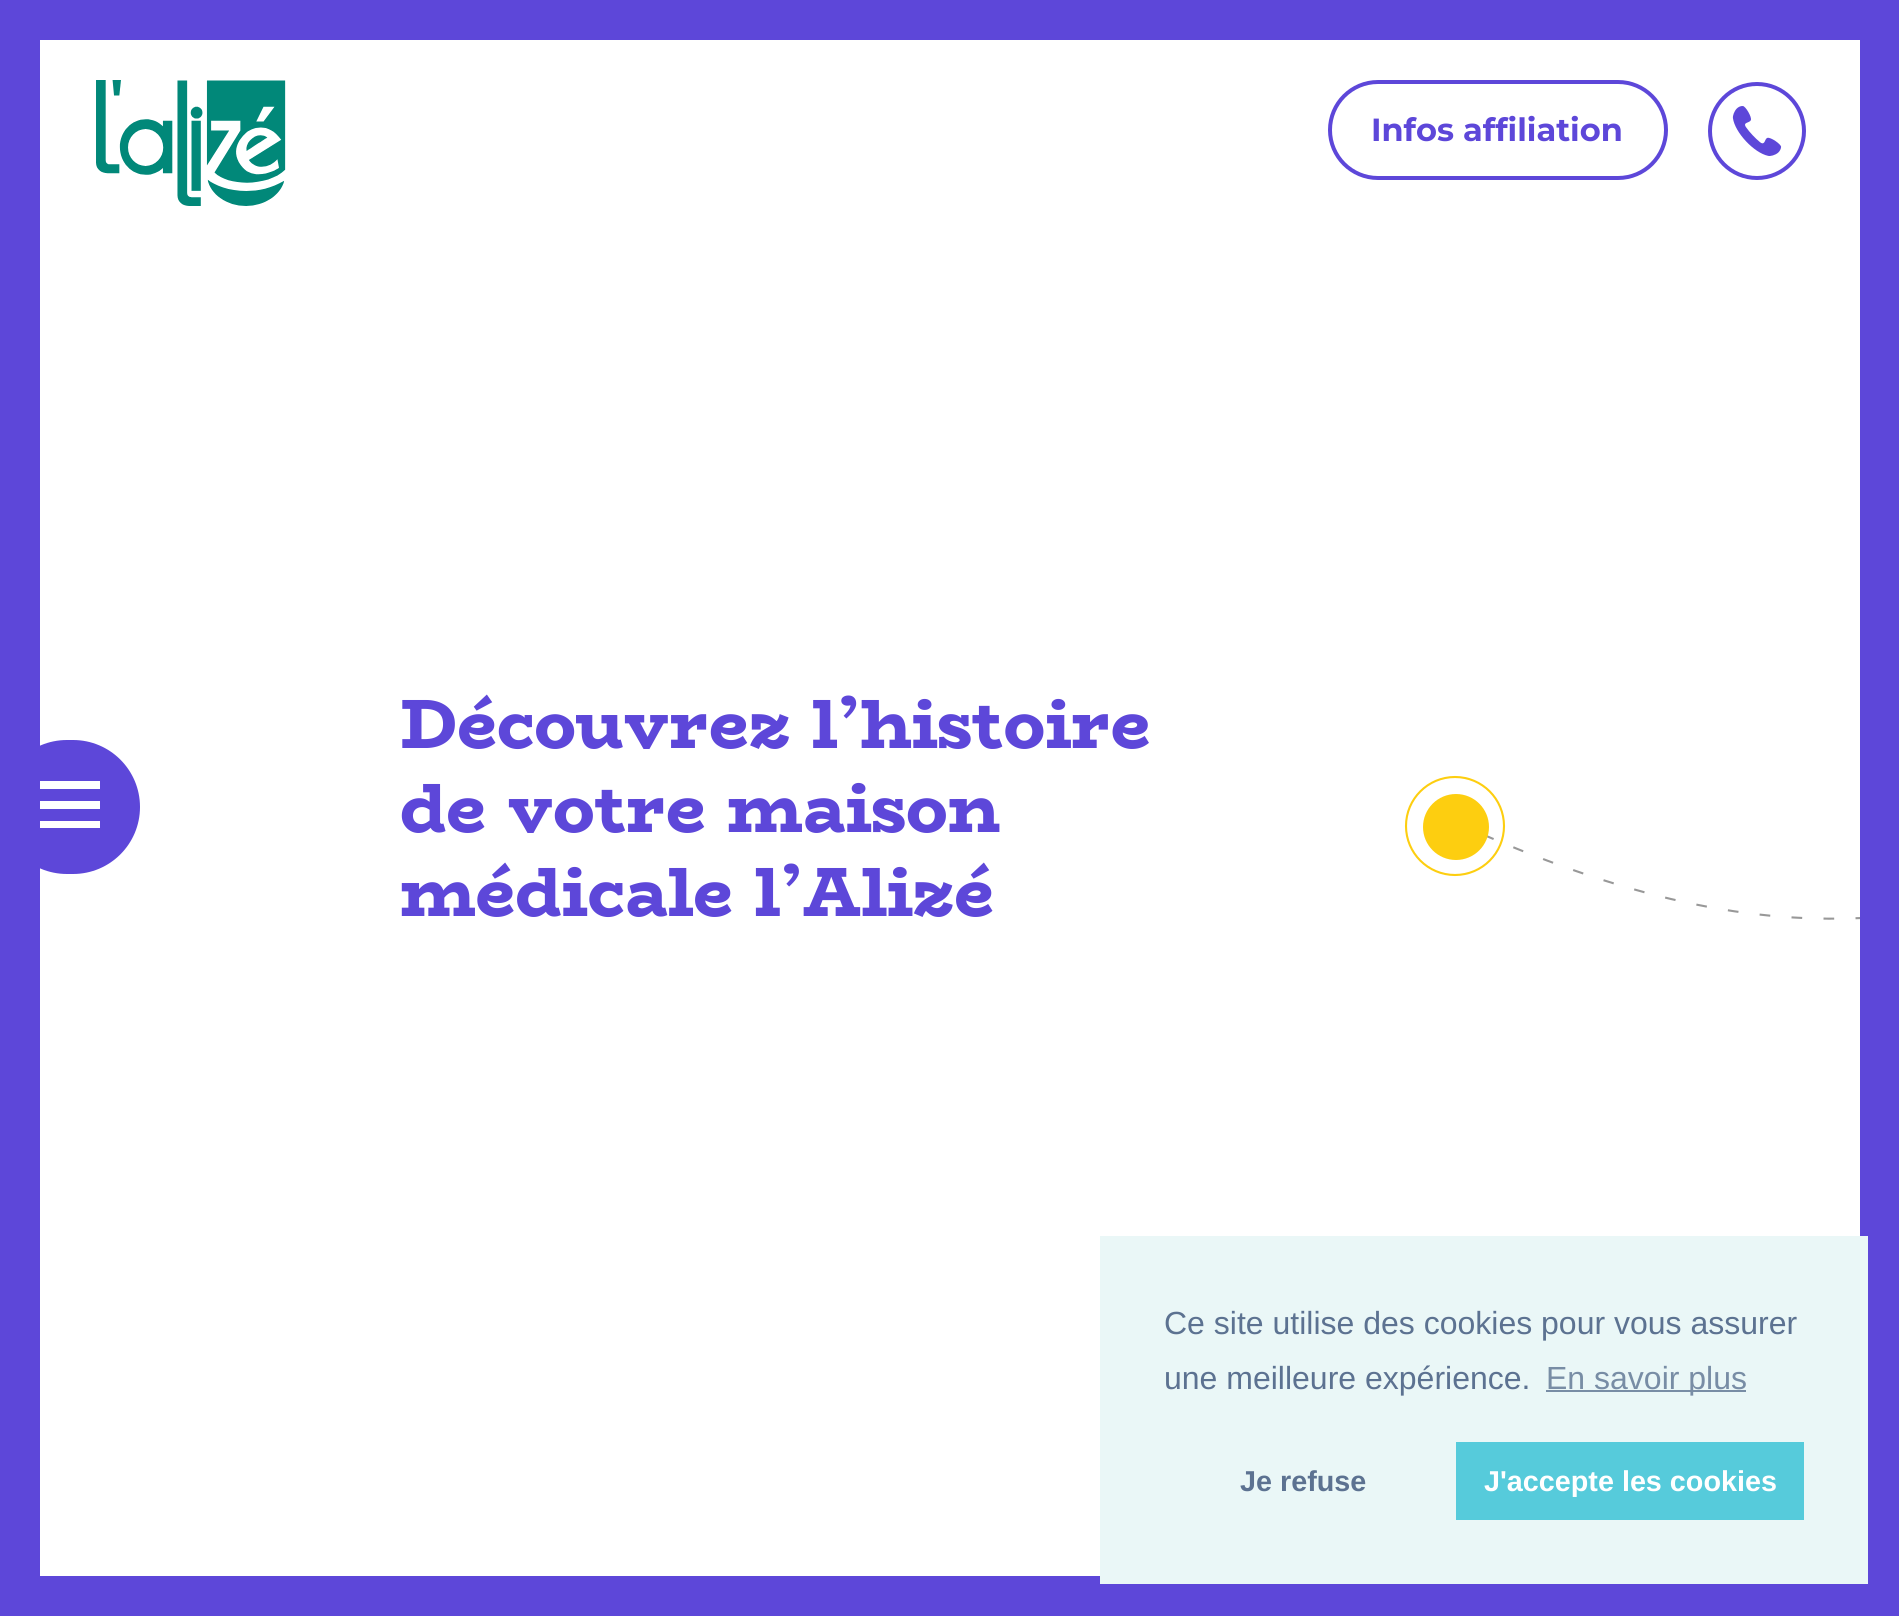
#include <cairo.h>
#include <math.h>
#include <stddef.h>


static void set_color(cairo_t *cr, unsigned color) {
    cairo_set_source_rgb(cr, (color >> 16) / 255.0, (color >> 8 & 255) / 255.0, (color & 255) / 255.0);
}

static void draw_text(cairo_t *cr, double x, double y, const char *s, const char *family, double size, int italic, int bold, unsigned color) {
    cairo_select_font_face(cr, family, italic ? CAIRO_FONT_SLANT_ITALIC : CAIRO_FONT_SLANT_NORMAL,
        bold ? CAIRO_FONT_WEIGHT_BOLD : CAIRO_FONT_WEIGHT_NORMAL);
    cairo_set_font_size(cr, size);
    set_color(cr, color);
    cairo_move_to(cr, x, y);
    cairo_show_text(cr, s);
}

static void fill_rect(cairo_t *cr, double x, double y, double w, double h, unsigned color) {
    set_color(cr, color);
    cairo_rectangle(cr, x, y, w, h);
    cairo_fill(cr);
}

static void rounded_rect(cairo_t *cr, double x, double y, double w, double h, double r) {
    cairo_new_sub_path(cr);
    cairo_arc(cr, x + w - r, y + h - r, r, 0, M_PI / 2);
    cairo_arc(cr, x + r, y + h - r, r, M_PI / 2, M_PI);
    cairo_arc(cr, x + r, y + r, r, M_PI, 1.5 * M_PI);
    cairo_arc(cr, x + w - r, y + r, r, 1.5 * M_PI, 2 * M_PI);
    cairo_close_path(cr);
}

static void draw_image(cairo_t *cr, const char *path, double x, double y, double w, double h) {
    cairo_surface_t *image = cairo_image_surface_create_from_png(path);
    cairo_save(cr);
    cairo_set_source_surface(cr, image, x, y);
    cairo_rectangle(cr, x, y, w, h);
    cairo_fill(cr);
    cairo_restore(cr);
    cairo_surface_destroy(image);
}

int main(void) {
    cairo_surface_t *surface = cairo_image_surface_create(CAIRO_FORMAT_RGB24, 1899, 1616);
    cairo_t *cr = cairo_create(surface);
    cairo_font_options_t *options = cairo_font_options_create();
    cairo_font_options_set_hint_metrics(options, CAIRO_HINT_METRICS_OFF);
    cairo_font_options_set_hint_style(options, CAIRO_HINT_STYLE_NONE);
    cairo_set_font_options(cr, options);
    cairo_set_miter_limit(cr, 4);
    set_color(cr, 0xFFFFFF);
    cairo_paint(cr);
    fill_rect(cr, 0, 0, 1899, 40, 0x5D47D9);
    fill_rect(cr, 0, 40, 40, 1536, 0x5D47D9);
    fill_rect(cr, 1860, 40, 39, 1536, 0x5D47D9);
    fill_rect(cr, 0, 1576, 1899, 40, 0x5D47D9);
    draw_image(cr, "assets/img1.png", 96, 80, 190, 126);
    rounded_rect(cr, 1330, 82, 336, 96, 48);
    cairo_set_line_width(cr, 4);
    cairo_stroke(cr);
    draw_text(cr, 1371, 141, "Infos affiliation", "Montserrat", 32, 0, 1, 0x5D47D9);
    cairo_new_path(cr);
    cairo_arc(cr, 1757, 131, 47, 0, 2 * M_PI);
    cairo_stroke(cr);
    draw_image(cr, "assets/img2.png", 1732, 106, 50, 50);
    rounded_rect(cr, 0, 740, 140, 134, 67);
    cairo_fill(cr);
    fill_rect(cr, 40, 781, 60, 8, 0xFFFFFF);
    fill_rect(cr, 40, 801, 60, 8, 0xFFFFFF);
    fill_rect(cr, 40, 821, 60, 7, 0xFFFFFF);
    draw_text(cr, 400, 748, "Découvrez l’histoire", "BioRhyme ExtraBold", 70, 0, 0, 0x5D47D9);
    draw_text(cr, 400, 832, "de votre maison", "BioRhyme ExtraBold", 70, 0, 0, 0x5D47D9);
    draw_text(cr, 400, 916, "médicale l’Alizé", "BioRhyme ExtraBold", 70, 0, 0, 0x5D47D9);
    draw_image(cr, "assets/img3.png", 1404, 775, 456, 145);
    fill_rect(cr, 1100, 1236, 768, 348, 0xEAF7F7);
    draw_text(cr, 1164, 1334, "Ce site utilise des cookies pour vous assurer", "Liberation Sans", 32, 0, 0, 0x5C7291);
    draw_text(cr, 1164, 1389, "une meilleure expérience.", "Liberation Sans", 32, 0, 0, 0x5C7291);
    fill_rect(cr, 1546, 1390, 200, 2, 0x788DA5);
    draw_text(cr, 1546, 1389, "En savoir plus", "Liberation Sans", 32, 0, 0, 0x788DA5);
    draw_text(cr, 1240, 1491, "Je refuse", "Liberation Sans", 28.75, 0, 1, 0x5C7291);
    fill_rect(cr, 1456, 1442, 348, 78, 0x56CBDB);
    draw_text(cr, 1484, 1491, "J'accepte les cookies", "Liberation Sans", 28.75, 0, 1, 0xFFFFFF);
    cairo_surface_write_to_png(surface, "output.png");
    cairo_font_options_destroy(options);
    cairo_destroy(cr);
    cairo_surface_destroy(surface);
    return 0;
}
